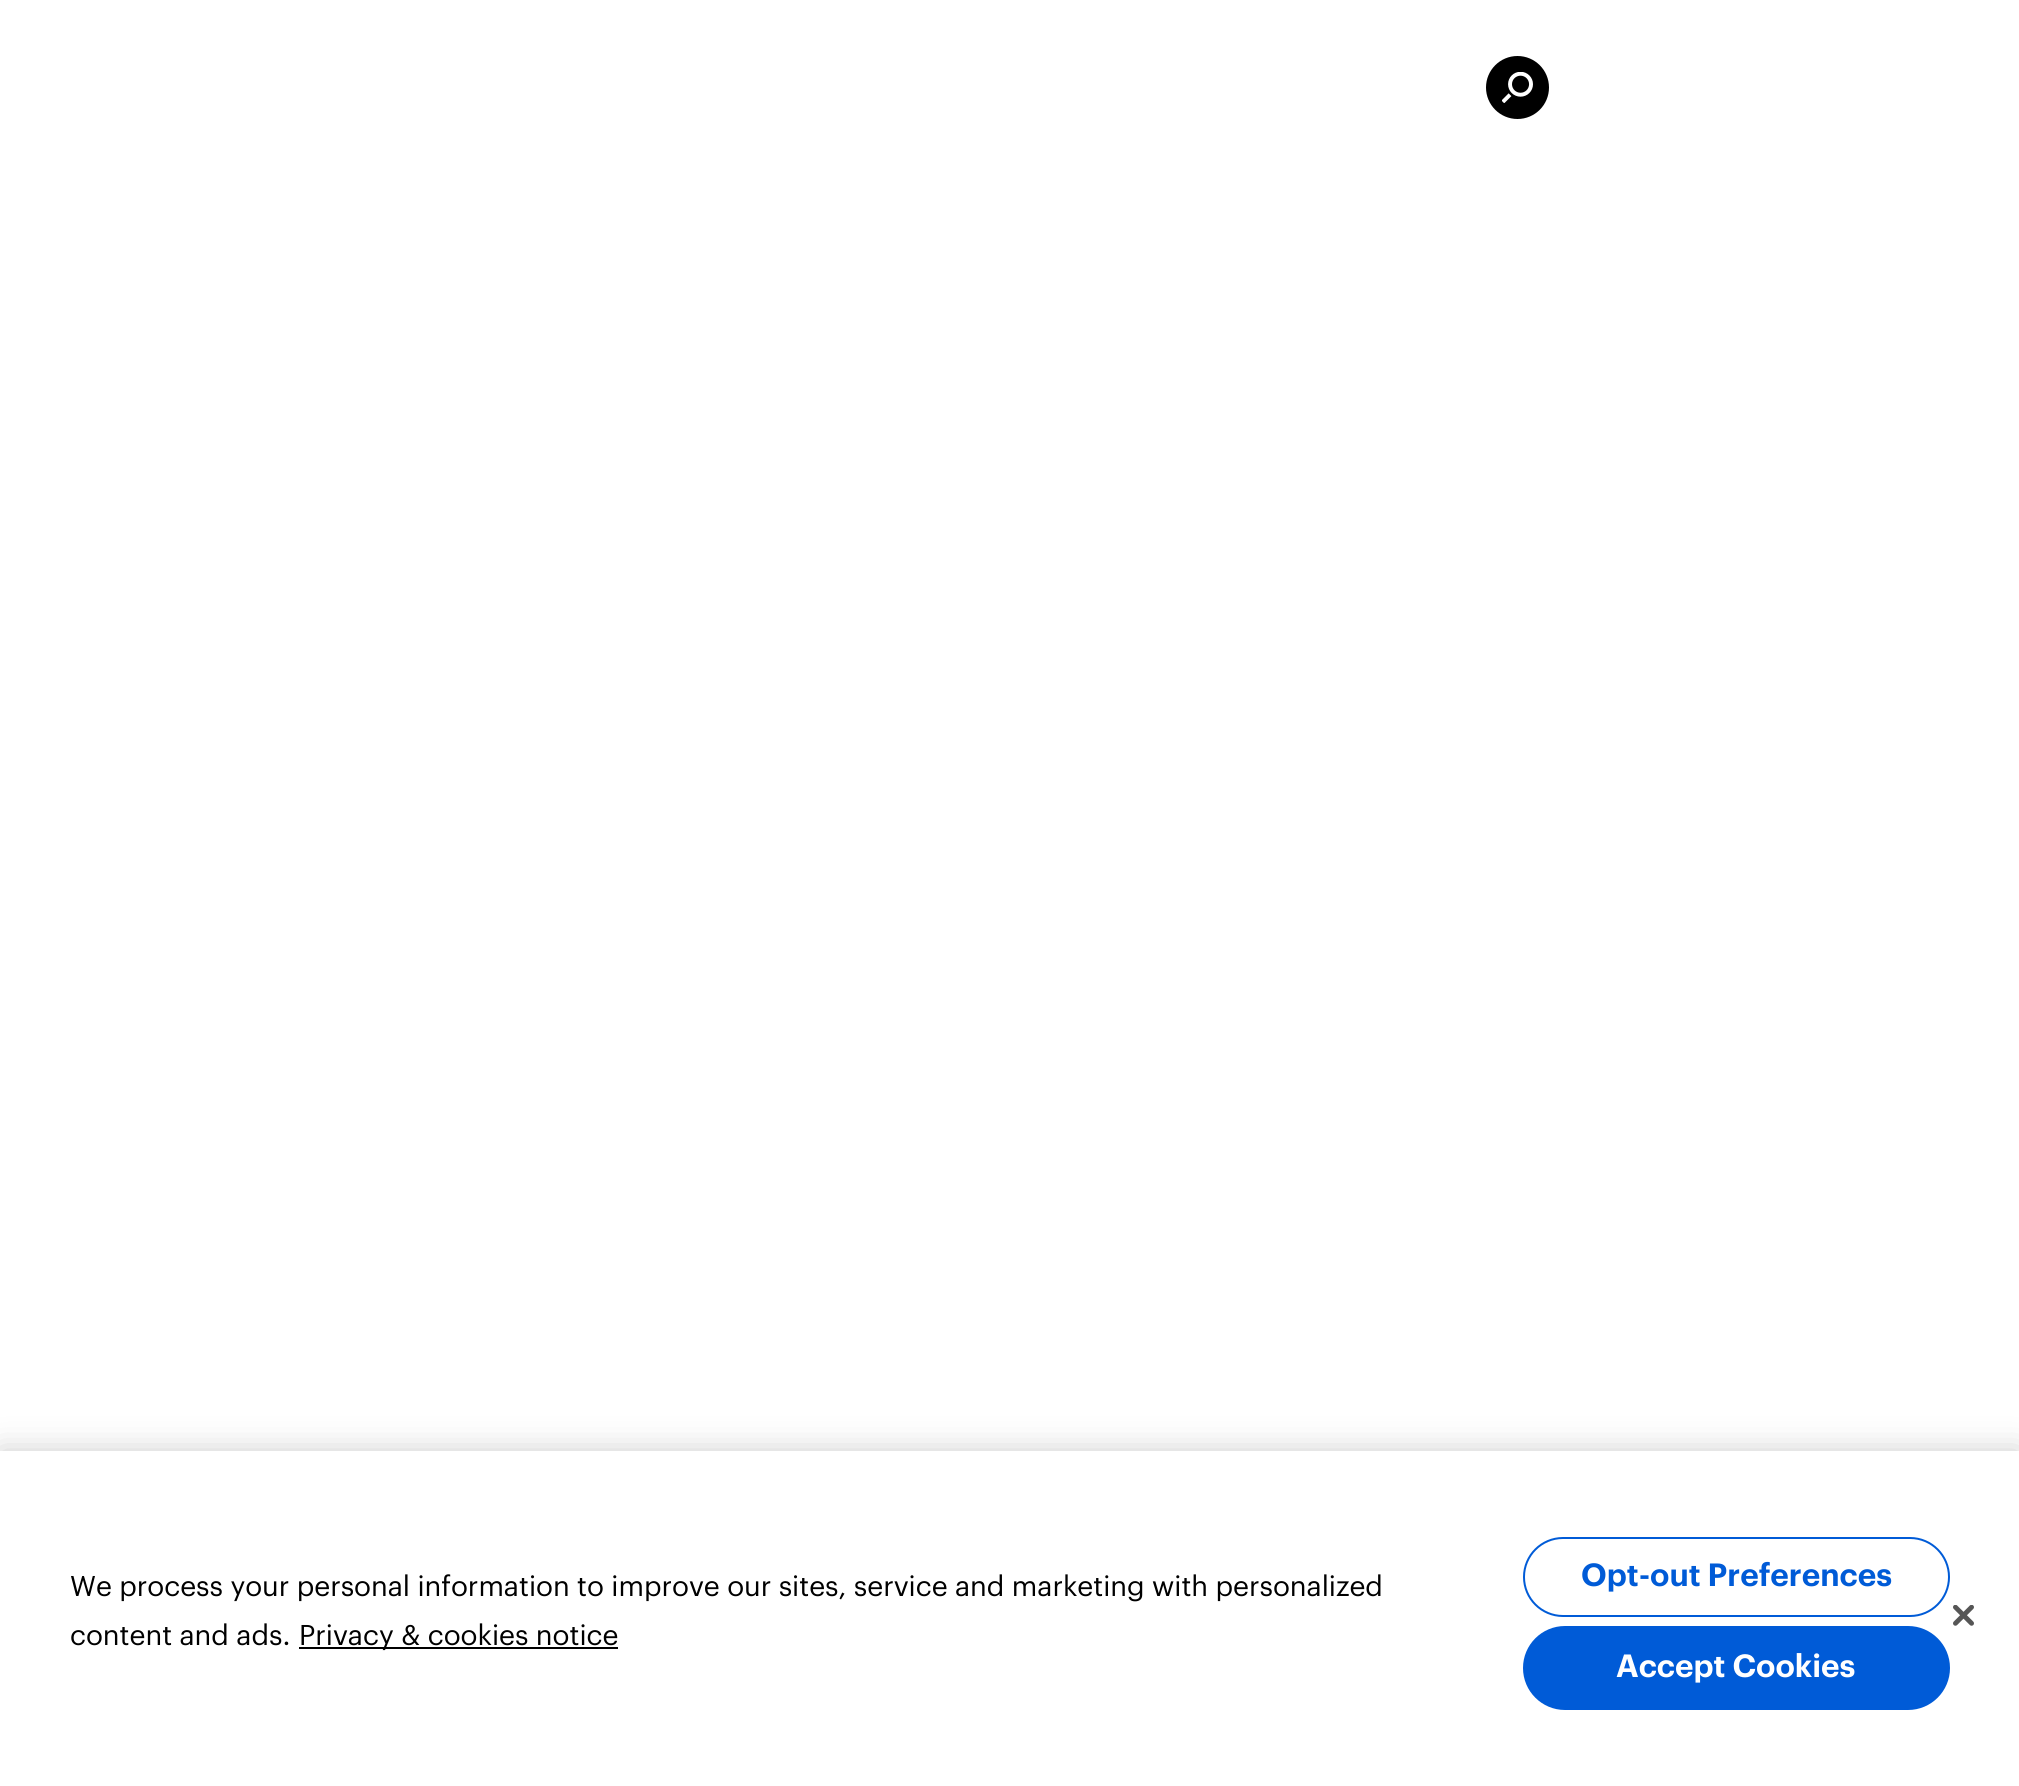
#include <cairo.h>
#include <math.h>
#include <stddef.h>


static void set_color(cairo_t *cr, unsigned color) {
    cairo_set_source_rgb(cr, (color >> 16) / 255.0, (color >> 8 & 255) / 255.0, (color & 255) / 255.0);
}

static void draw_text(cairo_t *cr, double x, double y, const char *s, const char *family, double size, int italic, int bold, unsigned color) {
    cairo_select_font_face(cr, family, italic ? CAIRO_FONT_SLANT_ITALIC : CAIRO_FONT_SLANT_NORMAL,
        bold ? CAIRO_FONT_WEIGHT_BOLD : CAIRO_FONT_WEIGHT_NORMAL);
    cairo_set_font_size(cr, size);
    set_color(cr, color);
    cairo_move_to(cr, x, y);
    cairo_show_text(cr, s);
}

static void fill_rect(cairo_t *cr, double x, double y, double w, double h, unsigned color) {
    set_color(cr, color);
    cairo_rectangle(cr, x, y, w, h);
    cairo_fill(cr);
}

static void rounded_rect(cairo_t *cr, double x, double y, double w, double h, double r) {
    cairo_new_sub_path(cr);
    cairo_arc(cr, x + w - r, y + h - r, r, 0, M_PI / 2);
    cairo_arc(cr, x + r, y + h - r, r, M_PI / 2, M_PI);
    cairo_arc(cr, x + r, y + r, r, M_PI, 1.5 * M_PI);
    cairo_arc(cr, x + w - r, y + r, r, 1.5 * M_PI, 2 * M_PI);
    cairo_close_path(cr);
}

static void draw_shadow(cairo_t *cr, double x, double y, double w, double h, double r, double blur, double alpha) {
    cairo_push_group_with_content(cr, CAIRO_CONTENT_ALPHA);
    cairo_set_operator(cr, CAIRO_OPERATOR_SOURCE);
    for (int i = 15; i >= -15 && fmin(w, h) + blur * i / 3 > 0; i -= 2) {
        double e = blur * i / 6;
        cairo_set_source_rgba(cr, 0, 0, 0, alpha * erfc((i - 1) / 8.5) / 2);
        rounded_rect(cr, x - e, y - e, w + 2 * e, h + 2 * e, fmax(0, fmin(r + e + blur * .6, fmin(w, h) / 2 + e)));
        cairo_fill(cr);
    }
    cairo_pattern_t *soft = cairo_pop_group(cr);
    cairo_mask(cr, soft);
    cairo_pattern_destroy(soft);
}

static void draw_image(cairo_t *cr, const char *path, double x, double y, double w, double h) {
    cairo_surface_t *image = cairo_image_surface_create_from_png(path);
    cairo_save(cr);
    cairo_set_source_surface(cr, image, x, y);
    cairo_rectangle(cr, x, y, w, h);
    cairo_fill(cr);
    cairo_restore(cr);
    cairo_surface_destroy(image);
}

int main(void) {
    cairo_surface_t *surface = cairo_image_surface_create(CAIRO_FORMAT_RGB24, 2019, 1786);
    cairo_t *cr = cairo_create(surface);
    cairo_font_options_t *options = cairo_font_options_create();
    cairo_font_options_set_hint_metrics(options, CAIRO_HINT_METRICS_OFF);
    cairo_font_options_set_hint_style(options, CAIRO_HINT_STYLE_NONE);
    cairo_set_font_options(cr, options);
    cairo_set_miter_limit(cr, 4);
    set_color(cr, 0xFFFFFF);
    cairo_paint(cr);
    set_color(cr, 0x000000);
    cairo_arc(cr, 1517.5, 87.5, 31.5, 0, 2 * M_PI);
    cairo_fill(cr);
    draw_image(cr, "assets/img1.png", 1502, 72, 31, 31);
    set_color(cr, 0x000000);
    draw_shadow(cr, 0, 1451, 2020, 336, 0, 16, 0.2);
    fill_rect(cr, 0, 1451, 2019, 335, 0xFFFFFF);
    draw_text(cr, 70, 1596, "We process your personal information to improve our sites, service and marketing with personalized", "Graphik", 28, 0, 0, 0x000000);
    draw_text(cr, 70, 1645, "content and ads.", "Graphik", 28, 0, 0, 0x000000);
    fill_rect(cr, 299, 1647, 319, 2, 0x000000);
    draw_text(cr, 299, 1645, "Privacy & cookies notice", "Graphik", 28, 0, 0, 0x000000);
    rounded_rect(cr, 1524, 1538, 425, 78, 39);
    set_color(cr, 0x005BD7);
    cairo_stroke(cr);
    draw_text(cr, 1581, 1586, "Opt-out Preferences", "Graphik SemiBold", 31.5, 0, 0, 0x005BD7);
    rounded_rect(cr, 1523, 1626, 427, 84, 42);
    cairo_fill(cr);
    draw_text(cr, 1616, 1677, "Accept Cookies", "Graphik SemiBold", 31.5, 0, 0, 0xFFFFFF);
    draw_image(cr, "assets/img2.png", 1953, 1605, 21, 21);
    cairo_surface_write_to_png(surface, "output.png");
    cairo_font_options_destroy(options);
    cairo_destroy(cr);
    cairo_surface_destroy(surface);
    return 0;
}
